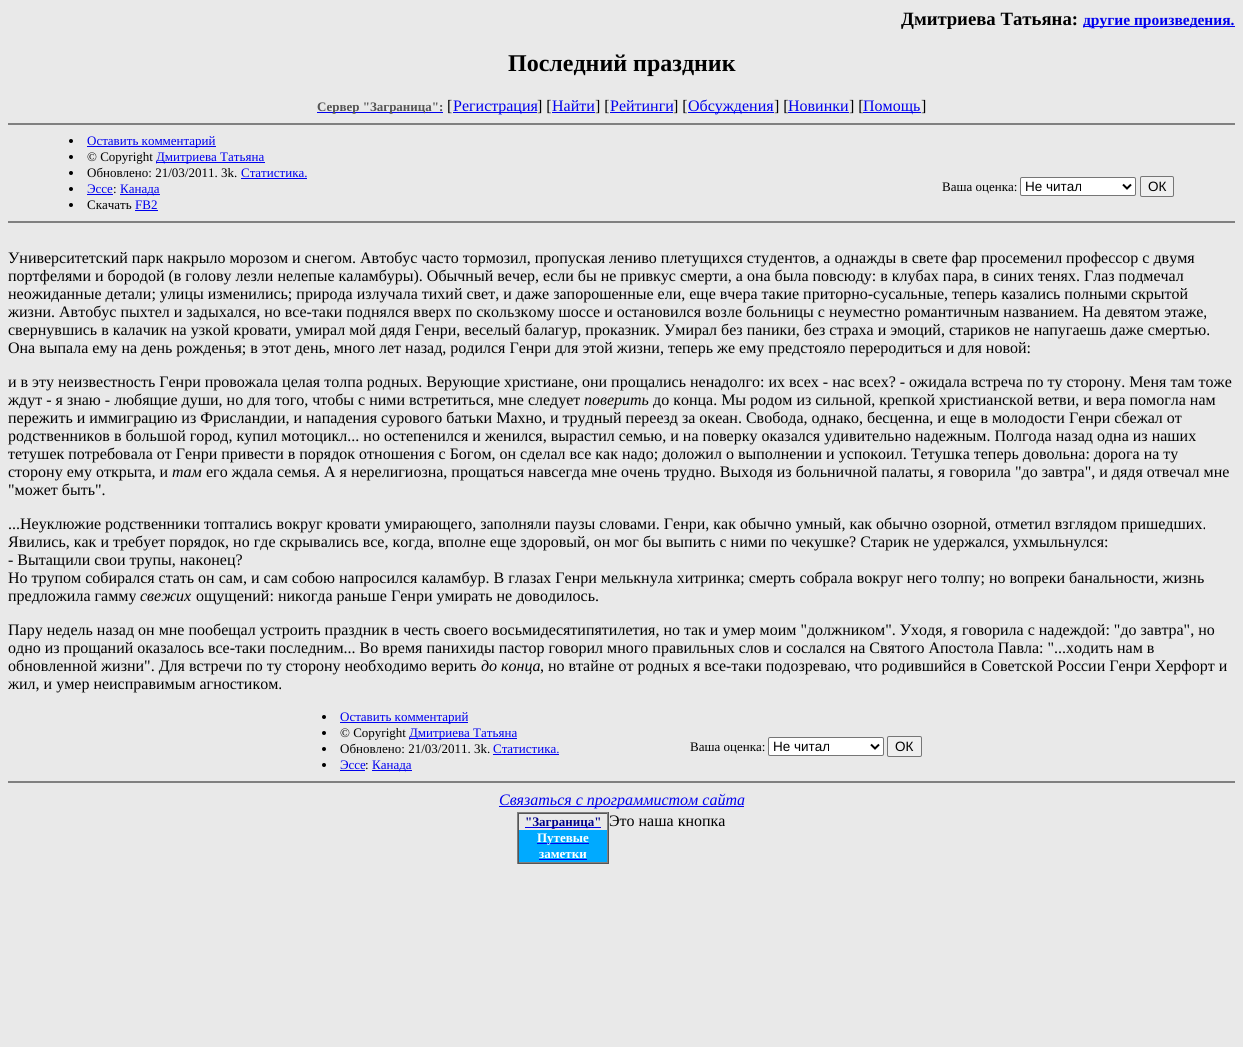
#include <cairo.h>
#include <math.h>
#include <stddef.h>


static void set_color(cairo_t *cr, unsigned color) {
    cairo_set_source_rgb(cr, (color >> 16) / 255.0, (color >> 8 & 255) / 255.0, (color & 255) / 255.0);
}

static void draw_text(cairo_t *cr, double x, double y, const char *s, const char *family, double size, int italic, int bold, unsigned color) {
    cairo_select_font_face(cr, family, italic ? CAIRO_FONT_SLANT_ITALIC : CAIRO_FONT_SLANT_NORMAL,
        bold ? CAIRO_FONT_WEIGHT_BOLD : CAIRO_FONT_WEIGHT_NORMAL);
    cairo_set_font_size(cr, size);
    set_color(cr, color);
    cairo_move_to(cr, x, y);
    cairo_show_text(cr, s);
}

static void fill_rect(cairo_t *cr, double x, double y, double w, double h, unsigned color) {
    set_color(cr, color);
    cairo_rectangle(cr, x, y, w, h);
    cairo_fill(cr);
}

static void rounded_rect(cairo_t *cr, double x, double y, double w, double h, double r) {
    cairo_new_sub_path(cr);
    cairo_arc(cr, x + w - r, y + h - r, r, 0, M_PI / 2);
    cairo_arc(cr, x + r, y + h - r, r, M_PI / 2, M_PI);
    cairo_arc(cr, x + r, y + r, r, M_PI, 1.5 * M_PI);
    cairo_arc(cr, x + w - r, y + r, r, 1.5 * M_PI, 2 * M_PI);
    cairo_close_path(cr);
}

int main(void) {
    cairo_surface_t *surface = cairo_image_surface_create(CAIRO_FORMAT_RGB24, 1243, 1047);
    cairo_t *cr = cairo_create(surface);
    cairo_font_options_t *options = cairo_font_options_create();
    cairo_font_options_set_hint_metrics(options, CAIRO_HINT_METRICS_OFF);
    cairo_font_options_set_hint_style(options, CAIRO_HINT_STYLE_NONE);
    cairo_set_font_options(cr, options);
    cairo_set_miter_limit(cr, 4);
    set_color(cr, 0xE9E9E9);
    cairo_paint(cr);
    draw_text(cr, 901, 25, "Дмитриева Татьяна:", "Liberation Serif", 18.75, 0, 1, 0x000000);
    fill_rect(cr, 1083, 26, 152, 1, 0x0000EE);
    draw_text(cr, 1083, 25, "другие произведения.", "Liberation Serif", 15.5, 0, 1, 0x0000EE);
    draw_text(cr, 508, 71, "Последний праздник", "Liberation Serif", 24, 0, 1, 0x000000);
    fill_rect(cr, 317, 112, 126, 1, 0x0000EE);
    draw_text(cr, 317, 111, "Сервер \"Заграница\":", "Liberation Serif", 13, 0, 1, 0x555555);
    draw_text(cr, 447, 111, "[", "Liberation Serif", 16, 0, 0, 0x000000);
    fill_rect(cr, 453, 112, 84, 1, 0x0000EE);
    draw_text(cr, 453, 111, "Регистрация", "Liberation Serif", 16, 0, 0, 0x0000EE);
    draw_text(cr, 537, 111, "] [", "Liberation Serif", 16, 0, 0, 0x000000);
    fill_rect(cr, 552, 112, 43, 1, 0x0000EE);
    draw_text(cr, 552, 111, "Найти", "Liberation Serif", 16, 0, 0, 0x0000EE);
    draw_text(cr, 595, 111, "] [", "Liberation Serif", 16, 0, 0, 0x000000);
    draw_text(cr, 610, 111, "Рейтинги", "Liberation Serif", 16, 0, 0, 0x0000EE);
    draw_text(cr, 673, 111, "] [", "Liberation Serif", 16, 0, 0, 0x000000);
    fill_rect(cr, 610, 112, 63, 1, 0x0000EE);
    fill_rect(cr, 688, 112, 86, 1, 0x0000EE);
    draw_text(cr, 688, 111, "Обсуждения", "Liberation Serif", 16, 0, 0, 0x0000EE);
    draw_text(cr, 774, 111, "] [", "Liberation Serif", 16, 0, 0, 0x000000);
    fill_rect(cr, 788, 112, 61, 1, 0x0000EE);
    draw_text(cr, 788, 111, "Новинки", "Liberation Serif", 16, 0, 0, 0x0000EE);
    draw_text(cr, 849, 111, "] [", "Liberation Serif", 16, 0, 0, 0x000000);
    fill_rect(cr, 863, 112, 58, 1, 0x0000EE);
    draw_text(cr, 863, 111, "Помощь", "Liberation Serif", 16, 0, 0, 0x0000EE);
    draw_text(cr, 921, 111, "]", "Liberation Serif", 16, 0, 0, 0x000000);
    fill_rect(cr, 8, 123, 1227, 2, 0x808080);
    set_color(cr, 0x000000);
    cairo_new_path(cr);
    cairo_arc(cr, 71, 141, 2, 0, 2 * M_PI);
    cairo_fill(cr);
    fill_rect(cr, 87, 146, 129, 1, 0x0000EE);
    draw_text(cr, 87, 145, "Оставить комментарий", "Liberation Serif", 13, 0, 0, 0x0000EE);
    set_color(cr, 0x000000);
    cairo_new_path(cr);
    cairo_arc(cr, 71, 157, 2, 0, 2 * M_PI);
    cairo_fill(cr);
    draw_text(cr, 87, 161, "© Copyright", "Liberation Serif", 13, 0, 0, 0x000000);
    fill_rect(cr, 156, 162, 109, 1, 0x0000EE);
    draw_text(cr, 156, 161, "Дмитриева Татьяна", "Liberation Serif", 13, 0, 0, 0x0000EE);
    set_color(cr, 0x000000);
    cairo_new_path(cr);
    cairo_arc(cr, 71, 173, 2, 0, 2 * M_PI);
    cairo_fill(cr);
    draw_text(cr, 87, 177, "Обновлено: 21/03/2011. 3k.", "Liberation Serif", 13, 0, 0, 0x000000);
    draw_text(cr, 241, 177, "Статистика.", "Liberation Serif", 13, 0, 0, 0x0000EE);
    fill_rect(cr, 241, 178, 66, 1, 0x0000EE);
    set_color(cr, 0x000000);
    cairo_new_path(cr);
    cairo_arc(cr, 71, 189, 2, 0, 2 * M_PI);
    cairo_fill(cr);
    draw_text(cr, 87, 193, "Эссе", "Liberation Serif", 13, 0, 0, 0x0000EE);
    fill_rect(cr, 87, 194, 26, 1, 0x0000EE);
    draw_text(cr, 113, 193, ":", "Liberation Serif", 13, 0, 0, 0x000000);
    fill_rect(cr, 120, 194, 40, 1, 0x0000EE);
    draw_text(cr, 120, 193, "Канада", "Liberation Serif", 13, 0, 0, 0x0000EE);
    set_color(cr, 0x000000);
    cairo_new_path(cr);
    cairo_arc(cr, 71, 205, 2, 0, 2 * M_PI);
    cairo_fill(cr);
    draw_text(cr, 87, 209, "Скачать", "Liberation Serif", 13, 0, 0, 0x000000);
    draw_text(cr, 135, 209, "FB2", "Liberation Serif", 13, 0, 0, 0x0000EE);
    fill_rect(cr, 135, 210, 23, 1, 0x0000EE);
    draw_text(cr, 942, 191, "Ваша оценка:", "Liberation Serif", 13, 0, 0, 0x000000);
    set_color(cr, 0xFFFFFF);
    rounded_rect(cr, 1020.5, 177.5, 115, 18, 1.5);
    cairo_fill_preserve(cr);
    set_color(cr, 0x767676);
    cairo_set_line_width(cr, 1);
    cairo_stroke(cr);
    cairo_new_path(cr);
    cairo_move_to(cr, 1123, 184.5);
    cairo_line_to(cr, 1127, 188.5);
    cairo_line_to(cr, 1131, 184.5);
    set_color(cr, 0x000000);
    cairo_set_line_width(cr, 2);
    cairo_stroke(cr);
    draw_text(cr, 1025, 191, "Не читал", "Liberation Sans", 13.5, 0, 0, 0x000000);
    set_color(cr, 0xEFEFEF);
    rounded_rect(cr, 1140.5, 176.5, 33, 20, 1.5);
    cairo_fill_preserve(cr);
    set_color(cr, 0x767676);
    cairo_set_line_width(cr, 1);
    cairo_stroke(cr);
    draw_text(cr, 1148, 191, "ОК", "Liberation Sans", 13.5, 0, 0, 0x000000);
    fill_rect(cr, 8, 221, 1227, 2, 0x808080);
    draw_text(cr, 8, 263, "Университетский парк накрыло морозом и снегом. Автобус часто тормозил, пропуская лениво плетущихся студентов, а однажды в свете фар просеменил профессор с двумя", "Liberation Serif", 16, 0, 0, 0x000000);
    draw_text(cr, 8, 281, "портфелями и бородой (в голову лезли нелепые каламбуры). Обычный вечер, если бы не привкус смерти, а она была повсюду: в клубах пара, в синих тенях. Глаз подмечал", "Liberation Serif", 16, 0, 0, 0x000000);
    draw_text(cr, 8, 299, "неожиданные детали; улицы изменились; природа излучала тихий свет, и даже запорошенные ели, еще вчера такие приторно-сусальные, теперь казались полными скрытой", "Liberation Serif", 16, 0, 0, 0x000000);
    draw_text(cr, 8, 317, "жизни. Автобус пыхтел и задыхался, но все-таки поднялся вверх по скользкому шоссе и остановился возле больницы с неуместно романтичным названием. На девятом этаже,", "Liberation Serif", 16, 0, 0, 0x000000);
    draw_text(cr, 8, 335, "свернувшись в калачик на узкой кровати, умирал мой дядя Генри, веселый балагур, проказник. Умирал без паники, без страха и эмоций, стариков не напугаешь даже смертью.", "Liberation Serif", 16, 0, 0, 0x000000);
    draw_text(cr, 8, 353, "Она выпала ему на день рожденья; в этот день, много лет назад, родился Генри для этой жизни, теперь же ему предстояло переродиться и для новой:", "Liberation Serif", 16, 0, 0, 0x000000);
    draw_text(cr, 8, 387, "и в эту неизвестность Генри провожала целая толпа родных. Верующие христиане, они прощались ненадолго: их всех - нас всех? - ожидала встреча по ту сторону. Меня там тоже", "Liberation Serif", 16, 0, 0, 0x000000);
    draw_text(cr, 8, 405, "ждут - я знаю - любящие души, но для того, чтобы с ними встретиться, мне следует", "Liberation Serif", 16, 0, 0, 0x000000);
    draw_text(cr, 584, 405, "поверить", "Liberation Serif", 16, 1, 0, 0x000000);
    draw_text(cr, 653, 405, "до конца. Мы родом из сильной, крепкой христианской ветви, и вера помогла нам", "Liberation Serif", 16, 0, 0, 0x000000);
    draw_text(cr, 8, 423, "пережить и иммиграцию из Фрисландии, и нападения сурового батьки Махно, и трудный переезд за океан. Свобода, однако, бесценна, и еще в молодости Генри сбежал от", "Liberation Serif", 16, 0, 0, 0x000000);
    draw_text(cr, 8, 441, "родственников в большой город, купил мотоцикл... но остепенился и женился, вырастил семью, и на поверку оказался удивительно надежным. Полгода назад одна из наших", "Liberation Serif", 16, 0, 0, 0x000000);
    draw_text(cr, 8, 459, "тетушек потребовала от Генри привести в порядок отношения с Богом, он сделал все как надо; доложил о выполнении и успокоил. Тетушка теперь довольна: дорога на ту", "Liberation Serif", 16, 0, 0, 0x000000);
    draw_text(cr, 8, 477, "сторону ему открыта, и", "Liberation Serif", 16, 0, 0, 0x000000);
    draw_text(cr, 172, 477, "там", "Liberation Serif", 16, 1, 0, 0x000000);
    draw_text(cr, 206, 477, "его ждала семья. А я нерелигиозна, прощаться навсегда мне очень трудно. Выходя из больничной палаты, я говорила \"до завтра\", и дядя отвечал мне", "Liberation Serif", 16, 0, 0, 0x000000);
    draw_text(cr, 8, 495, "\"может быть\".", "Liberation Serif", 16, 0, 0, 0x000000);
    draw_text(cr, 8, 529, "...Неуклюжие родственники топтались вокруг кровати умирающего, заполняли паузы словами. Генри, как обычно умный, как обычно озорной, отметил взглядом пришедших.", "Liberation Serif", 16, 0, 0, 0x000000);
    draw_text(cr, 8, 547, "Явились, как и требует порядок, но где скрывались все, когда, вполне еще здоровый, он мог бы выпить с ними по чекушке? Старик не удержался, ухмыльнулся:", "Liberation Serif", 16, 0, 0, 0x000000);
    draw_text(cr, 8, 565, "- Вытащили свои трупы, наконец?", "Liberation Serif", 16, 0, 0, 0x000000);
    draw_text(cr, 8, 583, "Но трупом собирался стать он сам, и сам собою напросился каламбур. В глазах Генри мелькнула хитринка; смерть собрала вокруг него толпу; но вопреки банальности, жизнь", "Liberation Serif", 16, 0, 0, 0x000000);
    draw_text(cr, 8, 601, "предложила гамму", "Liberation Serif", 16, 0, 0, 0x000000);
    draw_text(cr, 140, 601, "свежих", "Liberation Serif", 16, 1, 0, 0x000000);
    draw_text(cr, 196, 601, "ощущений: никогда раньше Генри умирать не доводилось.", "Liberation Serif", 16, 0, 0, 0x000000);
    draw_text(cr, 8, 635, "Пару недель назад он мне пообещал устроить праздник в честь своего восьмидесятипятилетия, но так и умер моим \"должником\". Уходя, я говорила с надеждой: \"до завтра\", но", "Liberation Serif", 16, 0, 0, 0x000000);
    draw_text(cr, 8, 653, "одно из прощаний оказалось все-таки последним... Во время панихиды пастор говорил много правильных слов и сослался на Святого Апостола Павла: \"...ходить нам в", "Liberation Serif", 16, 0, 0, 0x000000);
    draw_text(cr, 8, 671, "обновленной жизни\". Для встречи по ту сторону необходимо верить", "Liberation Serif", 16, 0, 0, 0x000000);
    draw_text(cr, 481, 671, "до конца", "Liberation Serif", 16, 1, 0, 0x000000);
    draw_text(cr, 540, 671, ", но втайне от родных я все-таки подозреваю, что родившийся в Советской России Генри Херфорт и", "Liberation Serif", 16, 0, 0, 0x000000);
    draw_text(cr, 8, 689, "жил, и умер неисправимым агностиком.", "Liberation Serif", 16, 0, 0, 0x000000);
    cairo_new_path(cr);
    cairo_arc(cr, 324, 717, 2, 0, 2 * M_PI);
    cairo_fill(cr);
    fill_rect(cr, 340, 722, 128, 1, 0x0000EE);
    draw_text(cr, 340, 721, "Оставить комментарий", "Liberation Serif", 13, 0, 0, 0x0000EE);
    set_color(cr, 0x000000);
    cairo_new_path(cr);
    cairo_arc(cr, 324, 733, 2, 0, 2 * M_PI);
    cairo_fill(cr);
    draw_text(cr, 340, 737, "© Copyright", "Liberation Serif", 13, 0, 0, 0x000000);
    fill_rect(cr, 409, 738, 108, 1, 0x0000EE);
    draw_text(cr, 409, 737, "Дмитриева Татьяна", "Liberation Serif", 13, 0, 0, 0x0000EE);
    set_color(cr, 0x000000);
    cairo_new_path(cr);
    cairo_arc(cr, 324, 749, 2, 0, 2 * M_PI);
    cairo_fill(cr);
    draw_text(cr, 340, 753, "Обновлено: 21/03/2011. 3k.", "Liberation Serif", 13, 0, 0, 0x000000);
    draw_text(cr, 493, 753, "Статистика.", "Liberation Serif", 13, 0, 0, 0x0000EE);
    fill_rect(cr, 493, 754, 66, 1, 0x0000EE);
    set_color(cr, 0x000000);
    cairo_new_path(cr);
    cairo_arc(cr, 324, 765, 2, 0, 2 * M_PI);
    cairo_fill(cr);
    draw_text(cr, 340, 769, "Эссе", "Liberation Serif", 13, 0, 0, 0x0000EE);
    fill_rect(cr, 340, 770, 25, 1, 0x0000EE);
    draw_text(cr, 365, 769, ":", "Liberation Serif", 13, 0, 0, 0x000000);
    fill_rect(cr, 372, 770, 40, 1, 0x0000EE);
    draw_text(cr, 372, 769, "Канада", "Liberation Serif", 13, 0, 0, 0x0000EE);
    draw_text(cr, 690, 751, "Ваша оценка:", "Liberation Serif", 13, 0, 0, 0x000000);
    set_color(cr, 0xFFFFFF);
    rounded_rect(cr, 768.5, 737.5, 115, 18, 1.5);
    cairo_fill_preserve(cr);
    set_color(cr, 0x767676);
    cairo_stroke(cr);
    cairo_new_path(cr);
    cairo_move_to(cr, 871, 744.5);
    cairo_line_to(cr, 875, 748.5);
    cairo_line_to(cr, 879, 744.5);
    set_color(cr, 0x000000);
    cairo_set_line_width(cr, 2);
    cairo_stroke(cr);
    draw_text(cr, 773, 751, "Не читал", "Liberation Sans", 13.5, 0, 0, 0x000000);
    set_color(cr, 0xEFEFEF);
    rounded_rect(cr, 887.5, 736.5, 34, 20, 1.5);
    cairo_fill_preserve(cr);
    set_color(cr, 0x767676);
    cairo_set_line_width(cr, 1);
    cairo_stroke(cr);
    draw_text(cr, 895, 751, "ОК", "Liberation Sans", 13.5, 0, 0, 0x000000);
    fill_rect(cr, 8, 781, 1227, 2, 0x808080);
    fill_rect(cr, 499, 806, 245, 1, 0x0000EE);
    draw_text(cr, 499, 805, "Связаться с программистом сайта", "Liberation Serif", 16, 1, 0, 0x0000EE);
    fill_rect(cr, 517, 812, 92, 1, 0x808080);
    fill_rect(cr, 608, 812, 1, 52, 0x555555);
    fill_rect(cr, 517, 863, 92, 1, 0x555555);
    fill_rect(cr, 517, 812, 1, 52, 0x808080);
    fill_rect(cr, 518, 813, 90, 1, 0x555555);
    fill_rect(cr, 607, 813, 1, 50, 0x808080);
    fill_rect(cr, 518, 862, 90, 1, 0x808080);
    fill_rect(cr, 518, 813, 1, 50, 0x555555);
    fill_rect(cr, 525, 827, 76, 1, 0x0000EE);
    draw_text(cr, 525, 826, "\"Заграница\"", "Liberation Serif", 13, 0, 1, 0x000088);
    fill_rect(cr, 519, 830, 88, 32, 0x00AAFF);
    fill_rect(cr, 537, 843, 52, 1, 0x0000EE);
    draw_text(cr, 537, 842, "Путевые", "Liberation Serif", 13, 0, 1, 0xFFFFFF);
    draw_text(cr, 539, 858, "заметки", "Liberation Serif", 13, 0, 1, 0xFFFFFF);
    fill_rect(cr, 539, 859, 48, 1, 0x0000EE);
    draw_text(cr, 609, 826, "Это наша кнопка", "Liberation Serif", 16, 0, 0, 0x000000);
    cairo_surface_write_to_png(surface, "output.png");
    cairo_font_options_destroy(options);
    cairo_destroy(cr);
    cairo_surface_destroy(surface);
    return 0;
}
